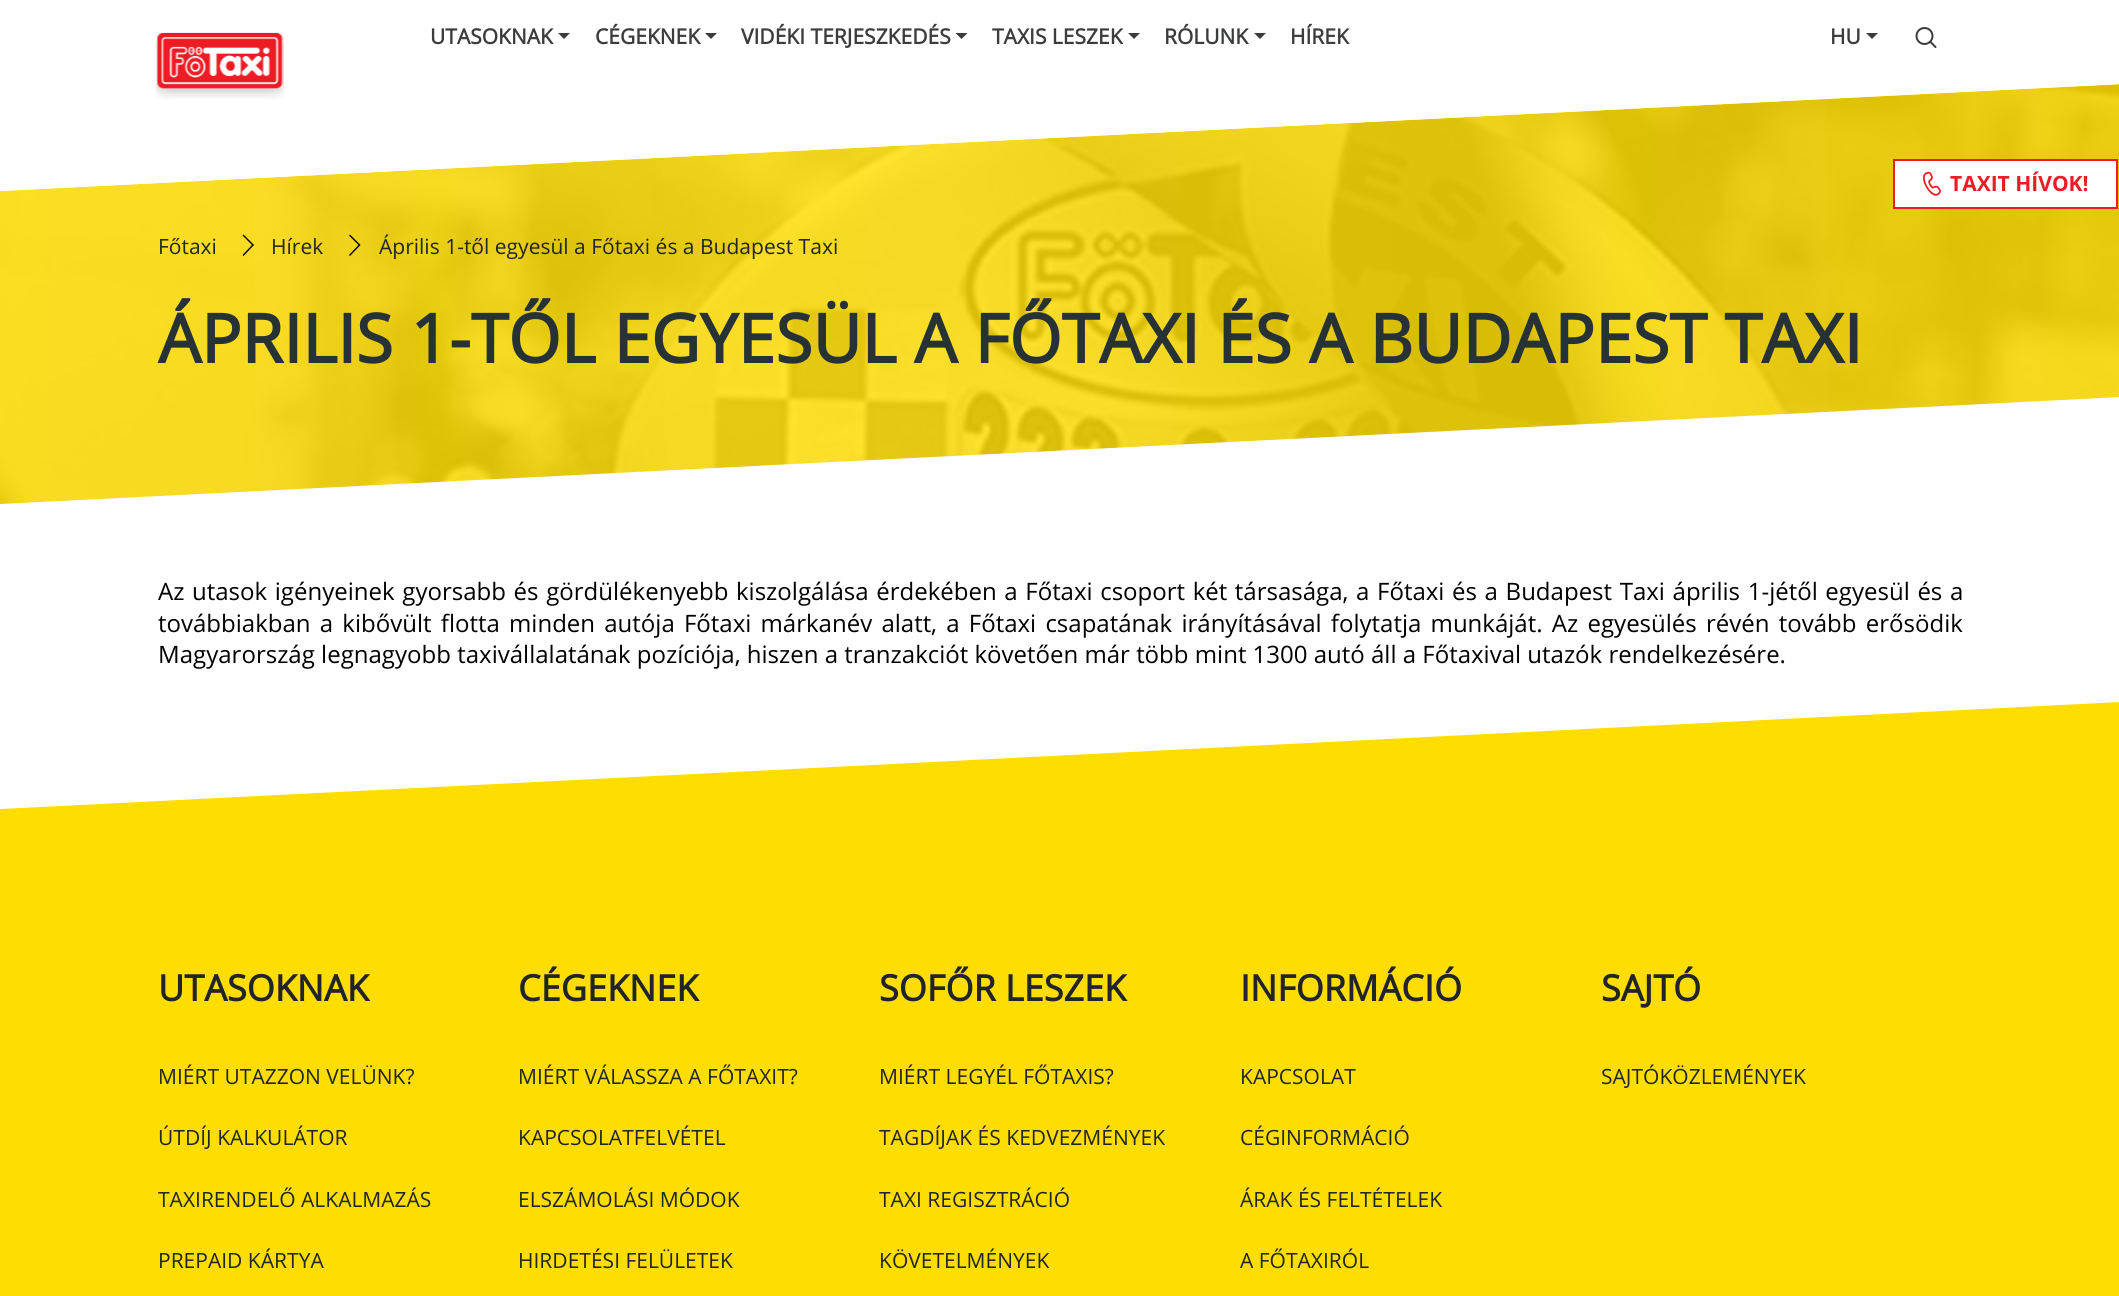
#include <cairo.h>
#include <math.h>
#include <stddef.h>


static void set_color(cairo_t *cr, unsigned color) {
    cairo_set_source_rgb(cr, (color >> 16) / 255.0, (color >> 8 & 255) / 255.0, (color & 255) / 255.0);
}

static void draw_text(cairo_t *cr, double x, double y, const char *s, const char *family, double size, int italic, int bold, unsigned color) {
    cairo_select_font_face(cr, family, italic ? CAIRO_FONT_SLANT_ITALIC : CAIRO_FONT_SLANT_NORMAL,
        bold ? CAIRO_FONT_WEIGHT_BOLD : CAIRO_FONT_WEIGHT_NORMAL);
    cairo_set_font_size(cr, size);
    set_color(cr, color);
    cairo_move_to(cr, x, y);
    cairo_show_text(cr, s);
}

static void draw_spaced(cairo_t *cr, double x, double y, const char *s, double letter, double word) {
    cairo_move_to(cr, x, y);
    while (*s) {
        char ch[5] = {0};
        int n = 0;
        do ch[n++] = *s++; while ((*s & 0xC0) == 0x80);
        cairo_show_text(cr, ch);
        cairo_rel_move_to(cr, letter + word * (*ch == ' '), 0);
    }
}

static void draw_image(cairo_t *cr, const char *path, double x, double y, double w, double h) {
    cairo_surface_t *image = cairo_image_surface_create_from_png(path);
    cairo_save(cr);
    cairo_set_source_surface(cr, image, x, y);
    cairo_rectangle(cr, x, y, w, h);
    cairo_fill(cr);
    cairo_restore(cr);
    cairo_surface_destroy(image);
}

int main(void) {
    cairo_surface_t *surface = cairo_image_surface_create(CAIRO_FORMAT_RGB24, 2119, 1296);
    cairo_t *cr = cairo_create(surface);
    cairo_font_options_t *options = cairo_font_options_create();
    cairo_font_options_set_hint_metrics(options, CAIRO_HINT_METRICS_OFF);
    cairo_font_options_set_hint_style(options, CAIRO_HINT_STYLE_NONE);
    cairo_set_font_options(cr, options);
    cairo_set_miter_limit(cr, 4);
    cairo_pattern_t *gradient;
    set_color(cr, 0xFFFFFF);
    cairo_paint(cr);
    gradient = cairo_pattern_create_linear(-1.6, 303, 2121, 285);
    cairo_pattern_add_color_stop_rgba(gradient, 0, 1, 0.867, 0, 1);
    cairo_pattern_add_color_stop_rgba(gradient, 0.48, 1, 0.871, 0.039, 1);
    cairo_pattern_add_color_stop_rgba(gradient, 0.99, 1, 0.867, 0, 1);
    cairo_set_source(cr, gradient);
    cairo_pattern_destroy(gradient);
    cairo_new_path(cr);
    cairo_move_to(cr, 0, 191);
    cairo_line_to(cr, 0, 504);
    cairo_line_to(cr, 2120, 397);
    cairo_line_to(cr, 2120, 84);
    cairo_close_path(cr);
    cairo_fill(cr);
    draw_image(cr, "assets/img3.png", 0, 84, 2119, 420);
    set_color(cr, 0xFFFFFF);
    cairo_new_path(cr);
    cairo_move_to(cr, 0, 0);
    cairo_line_to(cr, 0, 191);
    cairo_line_to(cr, 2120, 84);
    cairo_line_to(cr, 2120, 0);
    cairo_close_path(cr);
    cairo_fill(cr);
    draw_image(cr, "assets/img1.png", 156, 32, 128, 67);
    draw_text(cr, 430, 44, "UTASOKNAK", "Open Sans", 21, 0, 1, 0x3B3C3D);
    cairo_new_path(cr);
    cairo_move_to(cr, 558, 33);
    cairo_line_to(cr, 570, 33);
    cairo_line_to(cr, 564, 39);
    cairo_close_path(cr);
    cairo_fill(cr);
    draw_text(cr, 595, 44, "CÉGEKNEK", "Open Sans", 21, 0, 1, 0x3B3C3D);
    cairo_new_path(cr);
    cairo_move_to(cr, 705, 33);
    cairo_line_to(cr, 717, 33);
    cairo_line_to(cr, 711, 39);
    cairo_close_path(cr);
    cairo_fill(cr);
    draw_text(cr, 741, 44, "VIDÉKI TERJESZKEDÉS", "Open Sans", 21, 0, 1, 0x3B3C3D);
    cairo_new_path(cr);
    cairo_move_to(cr, 955.5, 33);
    cairo_line_to(cr, 967.5, 33);
    cairo_line_to(cr, 961.5, 39);
    cairo_close_path(cr);
    cairo_fill(cr);
    draw_text(cr, 992, 44, "TAXIS LESZEK", "Open Sans", 21, 0, 1, 0x3B3C3D);
    cairo_new_path(cr);
    cairo_move_to(cr, 1128, 33);
    cairo_line_to(cr, 1140, 33);
    cairo_line_to(cr, 1134, 39);
    cairo_close_path(cr);
    cairo_fill(cr);
    draw_text(cr, 1164, 44, "RÓLUNK", "Open Sans", 21, 0, 1, 0x3B3C3D);
    cairo_new_path(cr);
    cairo_move_to(cr, 1254, 33);
    cairo_line_to(cr, 1266, 33);
    cairo_line_to(cr, 1260, 39);
    cairo_close_path(cr);
    cairo_fill(cr);
    draw_text(cr, 1290, 44, "HÍREK", "Open Sans", 21, 0, 1, 0x3B3C3D);
    draw_text(cr, 1830, 44, "HU", "Open Sans", 21, 0, 1, 0x3B3C3D);
    cairo_new_path(cr);
    cairo_move_to(cr, 1866, 33);
    cairo_line_to(cr, 1878, 33);
    cairo_line_to(cr, 1872, 39);
    cairo_close_path(cr);
    cairo_fill(cr);
    cairo_arc(cr, 1924.5, 36, 8, 0, 2 * M_PI);
    cairo_stroke(cr);
    cairo_new_path(cr);
    cairo_move_to(cr, 1930.5, 42);
    cairo_line_to(cr, 1935.5, 47);
    cairo_set_line_cap(cr, CAIRO_LINE_CAP_ROUND);
    cairo_stroke(cr);
    set_color(cr, 0xFFFFFF);
    cairo_rectangle(cr, 1894, 160, 223, 48);
    cairo_fill_preserve(cr);
    set_color(cr, 0xED1C24);
    cairo_set_line_cap(cr, CAIRO_LINE_CAP_BUTT);
    cairo_stroke(cr);
    draw_image(cr, "assets/img2.png", 1923, 171, 18, 25);
    draw_text(cr, 1950, 191, "TAXIT HÍVOK!", "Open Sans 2", 21, 0, 1, 0xED1C24);
    draw_text(cr, 158, 254, "Főtaxi", "Open Sans", 21, 0, 0, 0x212529);
    set_color(cr, 0x000000);
    cairo_new_path(cr);
    cairo_move_to(cr, 254, 245);
    cairo_line_to(cr, 243.5, 234.5);
    cairo_line_to(cr, 242.5, 235.5);
    cairo_line_to(cr, 252, 245);
    cairo_line_to(cr, 242.5, 255);
    cairo_line_to(cr, 243.5, 256);
    cairo_close_path(cr);
    cairo_fill(cr);
    draw_text(cr, 271, 254, "Hírek", "Open Sans", 21, 0, 0, 0x212529);
    set_color(cr, 0x000000);
    cairo_new_path(cr);
    cairo_move_to(cr, 360.5, 245);
    cairo_line_to(cr, 350, 234.5);
    cairo_line_to(cr, 349, 235.5);
    cairo_line_to(cr, 358.5, 245);
    cairo_line_to(cr, 349, 255);
    cairo_line_to(cr, 350, 256);
    cairo_close_path(cr);
    cairo_fill(cr);
    draw_text(cr, 379, 254, "Április 1-től egyesül a Főtaxi és a Budapest Taxi", "Open Sans", 21, 0, 0, 0x212529);
    draw_text(cr, 158, 363, "ÁPRILIS 1-TŐL EGYESÜL A FŐTAXI ÉS A BUDAPEST TAXI", "Open Sans", 67.5, 0, 1, 0x273235);
    cairo_select_font_face(cr, "Open Sans", CAIRO_FONT_SLANT_NORMAL, CAIRO_FONT_WEIGHT_NORMAL);
    cairo_set_font_size(cr, 24);
    set_color(cr, 0x000000);
    draw_spaced(cr, 158, 600, "Az utasok igényeinek gyorsabb és gördülékenyebb kiszolgálása érdekében a Főtaxi csoport két társasága, a Főtaxi és a Budapest Taxi április 1-jétől egyesül és a", 0, 1.4);
    draw_spaced(cr, 158, 632, "továbbiakban a kibővült flotta minden autója Főtaxi márkanév alatt, a Főtaxi csapatának irányításával folytatja munkáját. Az egyesülés révén tovább erősödik", 0, 3);
    draw_text(cr, 158, 663, "Magyarország legnagyobb taxivállalatának pozíciója, hiszen a tranzakciót követően már több mint 1300 autó áll a Főtaxival utazók rendelkezésére.", "Open Sans", 24, 0, 0, 0x000000);
    set_color(cr, 0xFFDD00);
    cairo_new_path(cr);
    cairo_move_to(cr, 0, 809);
    cairo_line_to(cr, 0, 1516);
    cairo_line_to(cr, 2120, 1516);
    cairo_line_to(cr, 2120, 702);
    cairo_close_path(cr);
    cairo_fill(cr);
    draw_text(cr, 158, 1001, "UTASOKNAK", "Open Sans", 36, 0, 1, 0x212529);
    draw_text(cr, 158, 1084, "MIÉRT UTAZZON VELÜNK?", "Open Sans", 21, 0, 0, 0x212529);
    draw_text(cr, 158, 1145, "ÚTDÍJ KALKULÁTOR", "Open Sans", 21, 0, 0, 0x212529);
    draw_text(cr, 158, 1207, "TAXIRENDELŐ ALKALMAZÁS", "Open Sans", 21, 0, 0, 0x212529);
    draw_text(cr, 158, 1268, "PREPAID KÁRTYA", "Open Sans", 21, 0, 0, 0x212529);
    draw_text(cr, 518, 1001, "CÉGEKNEK", "Open Sans", 36, 0, 1, 0x212529);
    draw_text(cr, 518, 1084, "MIÉRT VÁLASSZA A FŐTAXIT?", "Open Sans", 21, 0, 0, 0x212529);
    draw_text(cr, 518, 1145, "KAPCSOLATFELVÉTEL", "Open Sans", 21, 0, 0, 0x212529);
    draw_text(cr, 518, 1207, "ELSZÁMOLÁSI MÓDOK", "Open Sans", 21, 0, 0, 0x212529);
    draw_text(cr, 518, 1268, "HIRDETÉSI FELÜLETEK", "Open Sans", 21, 0, 0, 0x212529);
    draw_text(cr, 879, 1001, "SOFŐR LESZEK", "Open Sans", 36, 0, 1, 0x212529);
    draw_text(cr, 879, 1084, "MIÉRT LEGYÉL FŐTAXIS?", "Open Sans", 21, 0, 0, 0x212529);
    draw_text(cr, 879, 1145, "TAGDÍJAK ÉS KEDVEZMÉNYEK", "Open Sans", 21, 0, 0, 0x212529);
    draw_text(cr, 879, 1207, "TAXI REGISZTRÁCIÓ", "Open Sans", 21, 0, 0, 0x212529);
    draw_text(cr, 879, 1268, "KÖVETELMÉNYEK", "Open Sans", 21, 0, 0, 0x212529);
    draw_text(cr, 1240, 1001, "INFORMÁCIÓ", "Open Sans", 36, 0, 1, 0x212529);
    draw_text(cr, 1240, 1084, "KAPCSOLAT", "Open Sans", 21, 0, 0, 0x212529);
    draw_text(cr, 1240, 1145, "CÉGINFORMÁCIÓ", "Open Sans", 21, 0, 0, 0x212529);
    draw_text(cr, 1240, 1207, "ÁRAK ÉS FELTÉTELEK", "Open Sans", 21, 0, 0, 0x212529);
    draw_text(cr, 1240, 1268, "A FŐTAXIRÓL", "Open Sans", 21, 0, 0, 0x212529);
    draw_text(cr, 1601, 1001, "SAJTÓ", "Open Sans", 36, 0, 1, 0x212529);
    draw_text(cr, 1601, 1084, "SAJTÓKÖZLEMÉNYEK", "Open Sans", 21, 0, 0, 0x212529);
    cairo_surface_write_to_png(surface, "output.png");
    cairo_font_options_destroy(options);
    cairo_destroy(cr);
    cairo_surface_destroy(surface);
    return 0;
}
